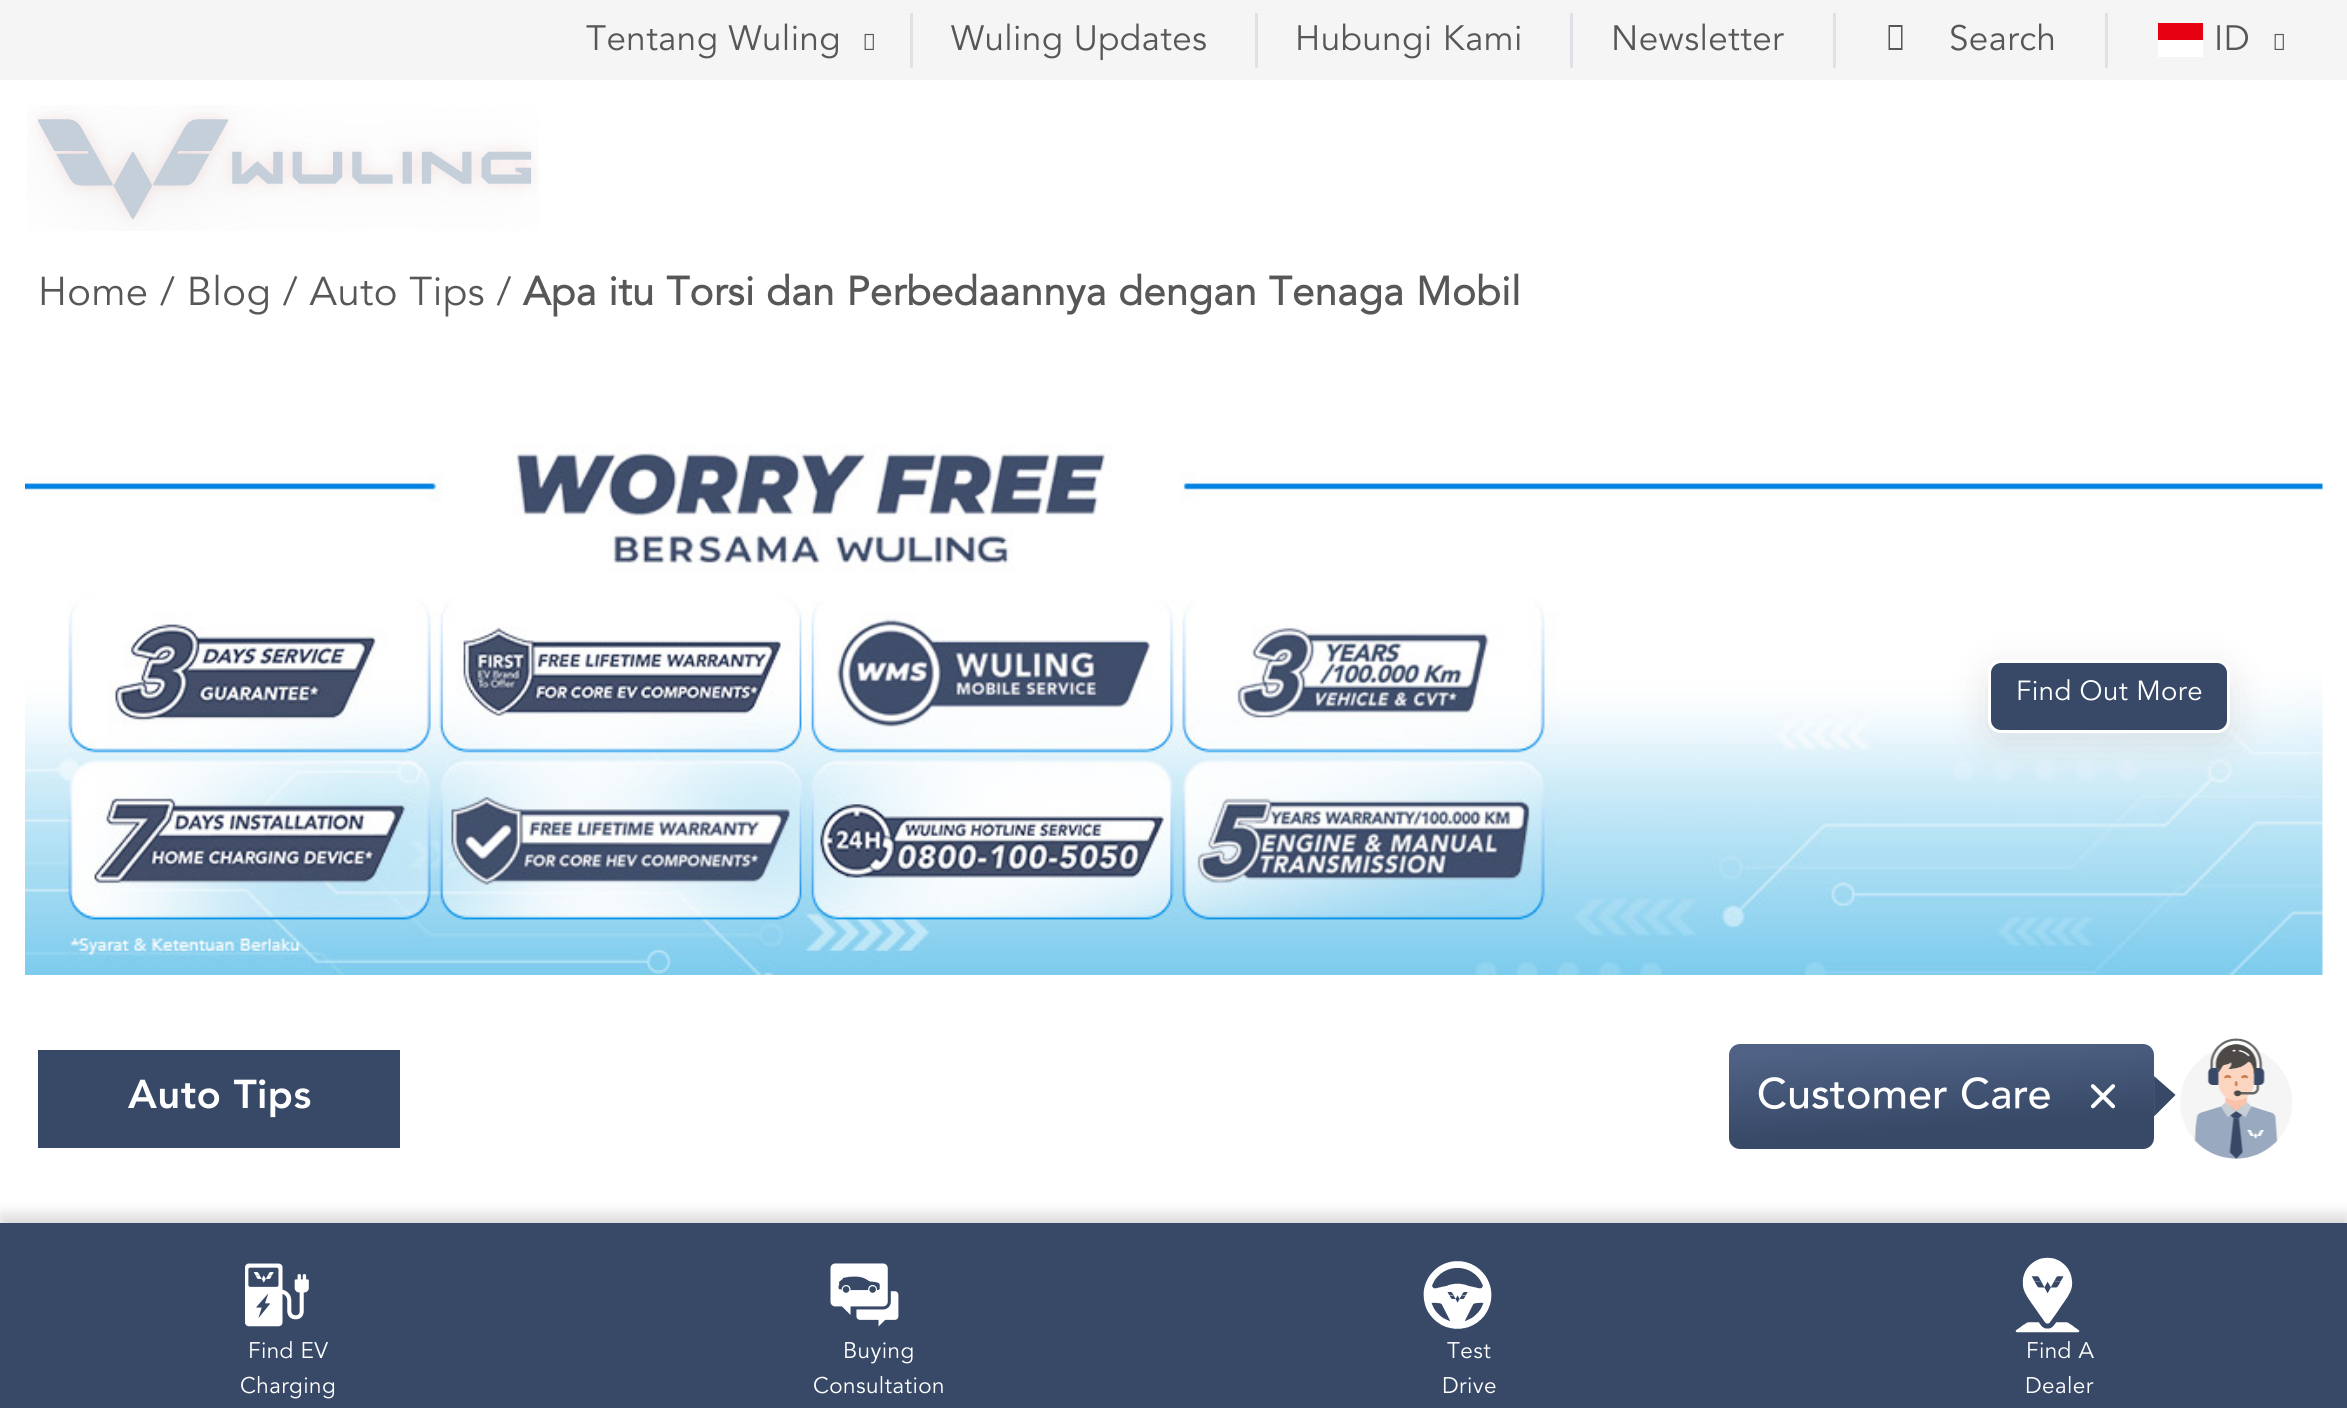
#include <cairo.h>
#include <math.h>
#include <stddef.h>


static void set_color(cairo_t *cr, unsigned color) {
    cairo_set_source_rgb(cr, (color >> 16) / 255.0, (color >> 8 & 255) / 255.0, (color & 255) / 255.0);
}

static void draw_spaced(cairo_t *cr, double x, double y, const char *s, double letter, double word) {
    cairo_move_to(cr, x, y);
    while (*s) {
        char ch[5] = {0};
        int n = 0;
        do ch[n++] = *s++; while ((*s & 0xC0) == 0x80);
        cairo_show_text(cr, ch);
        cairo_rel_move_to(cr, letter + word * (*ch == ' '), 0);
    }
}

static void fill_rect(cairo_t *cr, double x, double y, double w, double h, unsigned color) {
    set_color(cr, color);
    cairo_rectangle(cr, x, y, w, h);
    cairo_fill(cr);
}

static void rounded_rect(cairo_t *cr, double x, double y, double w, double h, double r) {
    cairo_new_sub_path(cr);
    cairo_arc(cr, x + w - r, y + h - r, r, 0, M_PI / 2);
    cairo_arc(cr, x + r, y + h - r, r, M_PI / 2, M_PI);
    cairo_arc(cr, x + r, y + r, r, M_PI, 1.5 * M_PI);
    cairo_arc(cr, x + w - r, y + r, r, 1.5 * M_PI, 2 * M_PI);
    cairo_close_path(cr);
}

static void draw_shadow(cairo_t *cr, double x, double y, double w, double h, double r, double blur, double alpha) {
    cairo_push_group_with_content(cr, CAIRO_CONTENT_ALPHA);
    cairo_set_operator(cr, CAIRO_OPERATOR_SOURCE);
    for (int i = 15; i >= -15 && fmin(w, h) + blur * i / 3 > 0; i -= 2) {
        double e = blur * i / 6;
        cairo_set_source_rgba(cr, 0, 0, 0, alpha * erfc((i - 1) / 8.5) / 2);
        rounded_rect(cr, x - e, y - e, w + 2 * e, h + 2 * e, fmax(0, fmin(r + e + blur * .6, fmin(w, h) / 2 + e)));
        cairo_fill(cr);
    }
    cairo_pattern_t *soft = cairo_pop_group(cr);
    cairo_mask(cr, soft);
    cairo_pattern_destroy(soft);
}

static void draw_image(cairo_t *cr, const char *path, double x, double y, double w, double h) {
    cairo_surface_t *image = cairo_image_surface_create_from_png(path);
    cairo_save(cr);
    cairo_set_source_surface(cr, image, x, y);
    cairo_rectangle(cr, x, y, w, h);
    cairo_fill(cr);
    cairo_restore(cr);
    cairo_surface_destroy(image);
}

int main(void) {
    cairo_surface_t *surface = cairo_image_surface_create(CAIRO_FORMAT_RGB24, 2347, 1408);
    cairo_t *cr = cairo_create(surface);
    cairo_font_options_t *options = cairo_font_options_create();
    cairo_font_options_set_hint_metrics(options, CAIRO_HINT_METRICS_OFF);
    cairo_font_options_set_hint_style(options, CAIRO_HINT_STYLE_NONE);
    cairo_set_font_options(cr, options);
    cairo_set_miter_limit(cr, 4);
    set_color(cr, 0xFFFFFF);
    cairo_paint(cr);
    fill_rect(cr, 0, 0, 2347, 80, 0xF5F5F5);
    cairo_select_font_face(cr, "Avenir", CAIRO_FONT_SLANT_NORMAL, CAIRO_FONT_WEIGHT_NORMAL);
    cairo_set_font_size(cr, 35);
    set_color(cr, 0x575757);
    draw_spaced(cr, 586, 50, "Tentang Wuling", 0.4, 0);
    draw_image(cr, "assets/img1.png", 864, 33, 10, 17);
    fill_rect(cr, 910, 13, 3, 55, 0xDEE2E6);
    set_color(cr, 0x575757);
    draw_spaced(cr, 951, 50, "Wuling Updates", 0.4, 0);
    fill_rect(cr, 1255, 13, 3, 55, 0xDEE2E6);
    set_color(cr, 0x575757);
    draw_spaced(cr, 1295, 50, "Hubungi Kami", 0.4, 0);
    fill_rect(cr, 1570, 13, 3, 55, 0xDEE2E6);
    set_color(cr, 0x575757);
    draw_spaced(cr, 1611, 50, "Newsletter", 0.4, 0);
    fill_rect(cr, 1833, 13, 3, 55, 0xDEE2E6);
    set_color(cr, 0x575757);
    cairo_new_path(cr);
    cairo_move_to(cr, 1888.5, 50);
    cairo_line_to(cr, 1888.5, 25);
    cairo_line_to(cr, 1902.5, 25);
    cairo_line_to(cr, 1902.5, 50);
    cairo_close_path(cr);
    cairo_move_to(cr, 1890, 48);
    cairo_line_to(cr, 1901, 48);
    cairo_line_to(cr, 1901, 27);
    cairo_line_to(cr, 1890, 27);
    cairo_close_path(cr);
    cairo_fill(cr);
    draw_spaced(cr, 1949, 50, "Search", 0.4, 0);
    fill_rect(cr, 2105, 13, 3, 55, 0xDEE2E6);
    fill_rect(cr, 2158, 23, 45, 17, 0xE70011);
    fill_rect(cr, 2158, 40, 45, 17, 0xFFFFFF);
    set_color(cr, 0x575757);
    draw_spaced(cr, 2214, 50, "ID", 0.4, 0);
    draw_image(cr, "assets/img1.png", 2274, 33, 10, 17);
    draw_image(cr, "assets/img2.png", 27, 105, 512, 126);
    cairo_set_font_size(cr, 40);
    draw_spaced(cr, 38, 305, "Home / Blog / Auto Tips /", 0.4, 0);
    cairo_select_font_face(cr, "Avenir", CAIRO_FONT_SLANT_NORMAL, CAIRO_FONT_WEIGHT_BOLD);
    draw_spaced(cr, 523, 305, "Apa itu Torsi dan Perbedaannya dengan Tenaga Mobil", 0.4, 0);
    draw_image(cr, "assets/img3.png", 25, 445, 2298, 530);
    set_color(cr, 0x999999);
    draw_shadow(cr, 1988, 670, 242, 73, 13, 20, 0.25);
    set_color(cr, 0x384967);
    rounded_rect(cr, 1989.5, 661.5, 239, 70, 11.5);
    cairo_fill_preserve(cr);
    set_color(cr, 0xFFFFFF);
    cairo_set_line_width(cr, 3);
    cairo_stroke(cr);
    cairo_select_font_face(cr, "Avenir", CAIRO_FONT_SLANT_NORMAL, CAIRO_FONT_WEIGHT_NORMAL);
    cairo_set_font_size(cr, 27.5);
    draw_spaced(cr, 2016, 700, "Find Out More", 0.4, 0);
    fill_rect(cr, 38, 1050, 362, 98, 0x384967);
    cairo_select_font_face(cr, "Avenir Black", CAIRO_FONT_SLANT_NORMAL, CAIRO_FONT_WEIGHT_NORMAL);
    cairo_set_font_size(cr, 40);
    set_color(cr, 0xFFFFFF);
    draw_spaced(cr, 128, 1108, "Auto Tips", 0.4, 0);
    draw_image(cr, "assets/img4.png", 1729, 1044, 447, 105);
    draw_image(cr, "assets/img5.png", 2180, 1038, 113, 121);
    set_color(cr, 0x000000);
    draw_shadow(cr, 0, 1215, 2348, 188, 0, 7.5, 0.16);
    fill_rect(cr, 0, 1223, 2347, 185, 0x384967);
    draw_image(cr, "assets/img6.png", 245, 1263, 64, 64);
    cairo_select_font_face(cr, "Avenir", CAIRO_FONT_SLANT_NORMAL, CAIRO_FONT_WEIGHT_NORMAL);
    cairo_set_font_size(cr, 22.5);
    set_color(cr, 0xFFFFFF);
    draw_spaced(cr, 248, 1358, "Find EV", 0.4, 0);
    draw_spaced(cr, 240, 1393, "Charging", 0.4, 0);
    draw_image(cr, "assets/img7.png", 830, 1263, 69, 64);
    draw_spaced(cr, 843, 1358, "Buying", 0.4, 0);
    draw_spaced(cr, 813, 1393, "Consultation", 0.4, 0);
    draw_image(cr, "assets/img8.png", 1423, 1261, 69, 68);
    draw_spaced(cr, 1447, 1358, "Test", 0.4, 0);
    draw_spaced(cr, 1442, 1393, "Drive", 0.4, 0);
    draw_image(cr, "assets/img9.png", 2015, 1257, 65, 76);
    draw_spaced(cr, 2026, 1358, "Find A", 0.4, 0);
    draw_spaced(cr, 2025, 1393, "Dealer", 0.4, 0);
    cairo_surface_write_to_png(surface, "output.png");
    cairo_font_options_destroy(options);
    cairo_destroy(cr);
    cairo_surface_destroy(surface);
    return 0;
}
